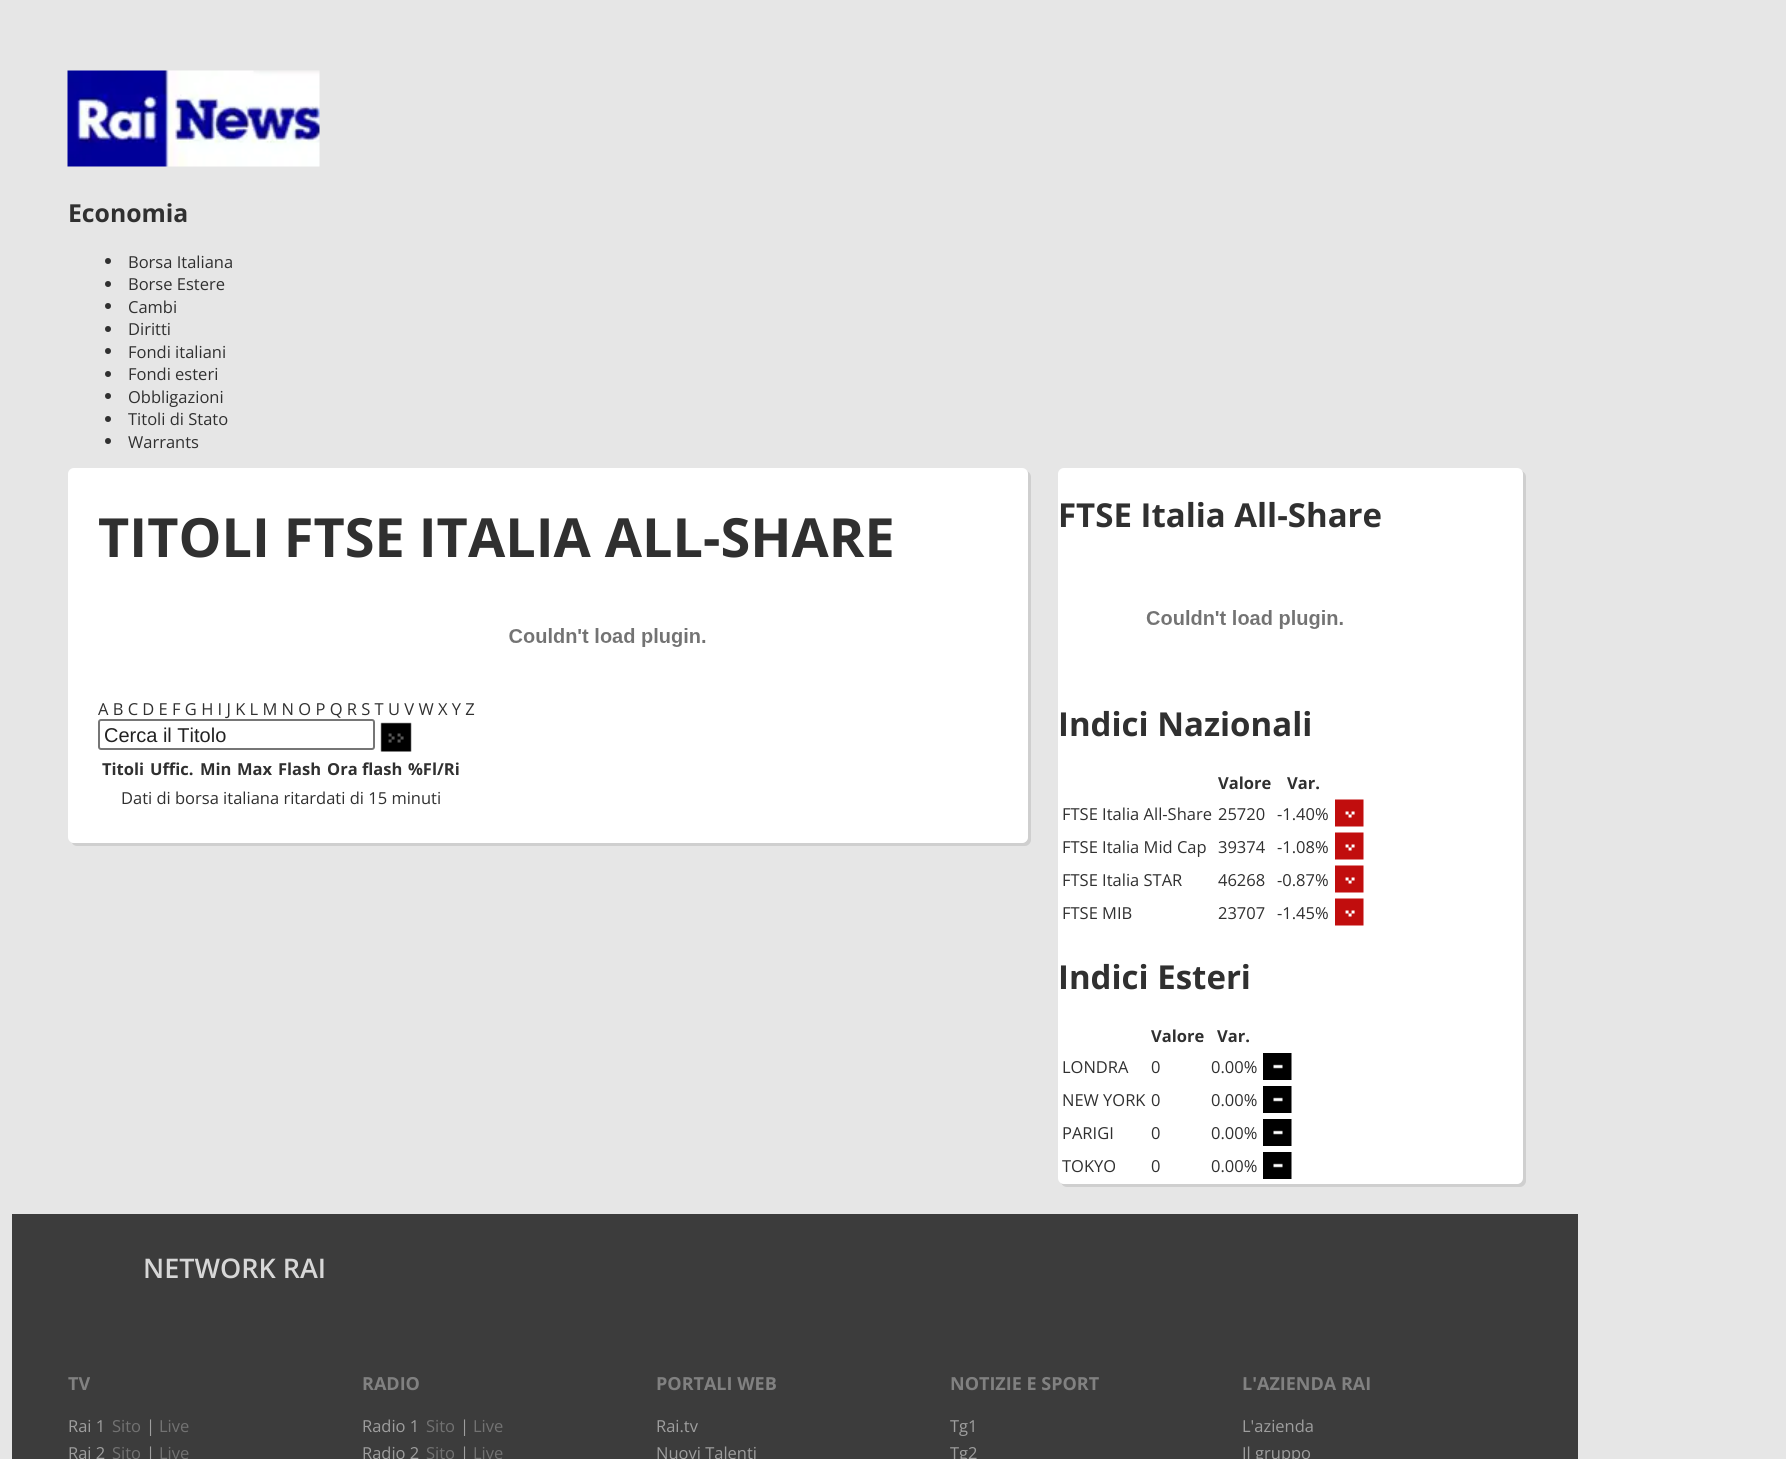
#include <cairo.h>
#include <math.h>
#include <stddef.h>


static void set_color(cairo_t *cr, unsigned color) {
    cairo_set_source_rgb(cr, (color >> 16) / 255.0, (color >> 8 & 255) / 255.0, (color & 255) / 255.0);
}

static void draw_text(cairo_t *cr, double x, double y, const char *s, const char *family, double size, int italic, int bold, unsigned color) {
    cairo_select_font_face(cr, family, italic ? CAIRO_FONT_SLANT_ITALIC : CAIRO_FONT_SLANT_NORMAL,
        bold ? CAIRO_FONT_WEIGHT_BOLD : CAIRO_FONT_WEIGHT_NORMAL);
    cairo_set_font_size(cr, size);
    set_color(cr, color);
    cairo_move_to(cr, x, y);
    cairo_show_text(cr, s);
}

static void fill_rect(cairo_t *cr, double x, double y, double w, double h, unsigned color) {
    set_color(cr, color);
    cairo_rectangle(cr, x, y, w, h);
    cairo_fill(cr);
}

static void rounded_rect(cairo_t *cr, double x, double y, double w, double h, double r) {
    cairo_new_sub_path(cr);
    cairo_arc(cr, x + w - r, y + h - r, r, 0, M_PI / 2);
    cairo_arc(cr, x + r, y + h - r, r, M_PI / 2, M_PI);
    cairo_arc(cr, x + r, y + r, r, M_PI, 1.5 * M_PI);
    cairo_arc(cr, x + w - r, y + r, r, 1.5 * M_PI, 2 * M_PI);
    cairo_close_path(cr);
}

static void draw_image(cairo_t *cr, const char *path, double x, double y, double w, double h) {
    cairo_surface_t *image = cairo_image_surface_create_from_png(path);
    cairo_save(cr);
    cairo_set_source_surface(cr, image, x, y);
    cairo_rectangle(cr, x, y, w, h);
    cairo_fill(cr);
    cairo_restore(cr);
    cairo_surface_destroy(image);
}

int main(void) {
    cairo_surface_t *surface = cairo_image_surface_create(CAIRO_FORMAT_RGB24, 1786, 1459);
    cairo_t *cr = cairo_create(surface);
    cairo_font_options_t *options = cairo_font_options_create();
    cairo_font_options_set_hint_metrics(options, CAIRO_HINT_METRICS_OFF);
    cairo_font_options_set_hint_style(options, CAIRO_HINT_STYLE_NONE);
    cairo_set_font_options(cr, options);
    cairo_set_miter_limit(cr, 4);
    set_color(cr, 0xE6E6E6);
    cairo_paint(cr);
    draw_image(cr, "assets/img1.png", 67, 70, 253, 97);
    draw_text(cr, 68, 222, "Economia", "Open Sans", 24.75, 0, 1, 0x303030);
    cairo_new_path(cr);
    cairo_arc(cr, 108, 261, 3, 0, 2 * M_PI);
    cairo_fill(cr);
    draw_text(cr, 128, 268, "Borsa Italiana", "Open Sans", 16.5, 0, 0, 0x303030);
    cairo_new_path(cr);
    cairo_arc(cr, 108, 284, 3, 0, 2 * M_PI);
    cairo_fill(cr);
    draw_text(cr, 128, 290, "Borse Estere", "Open Sans", 16.5, 0, 0, 0x303030);
    cairo_new_path(cr);
    cairo_arc(cr, 108, 306, 3, 0, 2 * M_PI);
    cairo_fill(cr);
    draw_text(cr, 128, 313, "Cambi", "Open Sans", 16.5, 0, 0, 0x303030);
    cairo_new_path(cr);
    cairo_arc(cr, 108, 329, 3, 0, 2 * M_PI);
    cairo_fill(cr);
    draw_text(cr, 128, 335, "Diritti", "Open Sans", 16.5, 0, 0, 0x303030);
    cairo_new_path(cr);
    cairo_arc(cr, 108, 351, 3, 0, 2 * M_PI);
    cairo_fill(cr);
    draw_text(cr, 128, 358, "Fondi italiani", "Open Sans", 16.5, 0, 0, 0x303030);
    cairo_new_path(cr);
    cairo_arc(cr, 108, 374, 3, 0, 2 * M_PI);
    cairo_fill(cr);
    draw_text(cr, 128, 380, "Fondi esteri", "Open Sans", 16.5, 0, 0, 0x303030);
    cairo_new_path(cr);
    cairo_arc(cr, 108, 396, 3, 0, 2 * M_PI);
    cairo_fill(cr);
    draw_text(cr, 128, 403, "Obbligazioni", "Open Sans", 16.5, 0, 0, 0x303030);
    cairo_new_path(cr);
    cairo_arc(cr, 108, 419, 3, 0, 2 * M_PI);
    cairo_fill(cr);
    draw_text(cr, 128, 425, "Titoli di Stato", "Open Sans", 16.5, 0, 0, 0x303030);
    cairo_new_path(cr);
    cairo_arc(cr, 108, 441, 3, 0, 2 * M_PI);
    cairo_fill(cr);
    draw_text(cr, 128, 448, "Warrants", "Open Sans", 16.5, 0, 0, 0x303030);
    set_color(cr, 0xCFCFCF);
    cairo_new_path(cr);
    cairo_move_to(cr, 72, 843);
    cairo_curve_to(cr, 73, 845, 75, 846, 77, 846);
    cairo_line_to(cr, 1025, 846);
    cairo_curve_to(cr, 1028, 846, 1031, 843, 1031, 840);
    cairo_line_to(cr, 1031, 477);
    cairo_curve_to(cr, 1031, 474, 1029, 472, 1027, 471);
    cairo_line_to(cr, 1028, 474);
    cairo_line_to(cr, 1028, 837);
    cairo_curve_to(cr, 1028, 840, 1025, 843, 1022, 843);
    cairo_close_path(cr);
    cairo_fill(cr);
    set_color(cr, 0xFFFFFF);
    rounded_rect(cr, 68, 468, 960, 375, 6);
    cairo_fill(cr);
    draw_text(cr, 98, 557, "TITOLI FTSE ITALIA ALL-SHARE", "Open Sans", 54, 0, 1, 0x303030);
    draw_image(cr, "assets/img2.png", 509, 628, 197, 19);
    draw_text(cr, 98, 715, "A B C D E F G H I J K L M N O P Q R S T U V W X Y Z", "Open Sans", 16.5, 0, 0, 0x303030);
    rounded_rect(cr, 99, 720, 275, 29, 2);
    set_color(cr, 0x767676);
    cairo_stroke(cr);
    draw_text(cr, 104, 742, "Cerca il Titolo", "Liberation Sans", 20, 0, 0, 0x222222);
    draw_image(cr, "assets/img3.png", 380, 722, 32, 30);
    draw_text(cr, 102, 775, "Titoli", "Open Sans", 16.5, 0, 1, 0x303030);
    draw_text(cr, 150, 775, "Uffic.", "Open Sans", 16.5, 0, 1, 0x303030);
    draw_text(cr, 200, 775, "Min", "Open Sans", 16.5, 0, 1, 0x303030);
    draw_text(cr, 237, 775, "Max", "Open Sans", 16.5, 0, 1, 0x303030);
    draw_text(cr, 278, 775, "Flash", "Open Sans", 16.5, 0, 1, 0x303030);
    draw_text(cr, 327, 775, "Ora flash", "Open Sans", 16.5, 0, 1, 0x303030);
    draw_text(cr, 408, 775, "%Fl/Ri", "Open Sans", 16.5, 0, 1, 0x303030);
    draw_text(cr, 121, 804, "Dati di borsa italiana ritardati di 15 minuti", "Open Sans", 16.5, 0, 0, 0x303030);
    set_color(cr, 0xCFCFCF);
    cairo_new_path(cr);
    cairo_move_to(cr, 1061, 1183);
    cairo_curve_to(cr, 1062, 1185, 1064, 1187, 1067, 1187);
    cairo_line_to(cr, 1520, 1187);
    cairo_curve_to(cr, 1523, 1187, 1526, 1184, 1526, 1181);
    cairo_line_to(cr, 1526, 477);
    cairo_curve_to(cr, 1526, 474, 1524, 472, 1522, 471);
    cairo_line_to(cr, 1522, 474);
    cairo_line_to(cr, 1522, 1178);
    cairo_curve_to(cr, 1522, 1181, 1520, 1184, 1516, 1184);
    cairo_line_to(cr, 1064, 1184);
    cairo_close_path(cr);
    cairo_fill(cr);
    set_color(cr, 0xFFFFFF);
    rounded_rect(cr, 1058, 468, 465, 716, 6);
    cairo_fill(cr);
    draw_text(cr, 1058, 527, "FTSE Italia All-Share", "Open Sans", 33, 0, 1, 0x303030);
    draw_image(cr, "assets/img4.png", 1146, 610, 197, 19);
    draw_text(cr, 1058, 736, "Indici Nazionali", "Open Sans", 33, 0, 1, 0x303030);
    draw_text(cr, 1218, 789, "Valore", "Open Sans", 16.5, 0, 1, 0x303030);
    draw_text(cr, 1287, 789, "Var.", "Open Sans", 16.5, 0, 1, 0x303030);
    draw_text(cr, 1062, 820, "FTSE Italia All-Share", "Open Sans", 16.5, 0, 0, 0x303030);
    draw_text(cr, 1218, 820, "25720", "Open Sans", 16.5, 0, 0, 0x303030);
    draw_text(cr, 1277, 820, "-1.40%", "Open Sans", 16.5, 0, 0, 0x303030);
    draw_image(cr, "assets/img5.png", 1335, 799, 29, 28);
    draw_text(cr, 1062, 853, "FTSE Italia Mid Cap", "Open Sans", 16.5, 0, 0, 0x303030);
    draw_text(cr, 1218, 853, "39374", "Open Sans", 16.5, 0, 0, 0x303030);
    draw_text(cr, 1277, 853, "-1.08%", "Open Sans", 16.5, 0, 0, 0x303030);
    draw_image(cr, "assets/img5.png", 1335, 832, 29, 28);
    draw_text(cr, 1062, 886, "FTSE Italia STAR", "Open Sans", 16.5, 0, 0, 0x303030);
    draw_text(cr, 1218, 886, "46268", "Open Sans", 16.5, 0, 0, 0x303030);
    draw_text(cr, 1277, 886, "-0.87%", "Open Sans", 16.5, 0, 0, 0x303030);
    draw_image(cr, "assets/img5.png", 1335, 865, 29, 28);
    draw_text(cr, 1062, 919, "FTSE MIB", "Open Sans", 16.5, 0, 0, 0x303030);
    draw_text(cr, 1218, 919, "23707", "Open Sans", 16.5, 0, 0, 0x303030);
    draw_text(cr, 1277, 919, "-1.45%", "Open Sans", 16.5, 0, 0, 0x303030);
    draw_image(cr, "assets/img5.png", 1335, 898, 29, 28);
    draw_text(cr, 1058, 989, "Indici Esteri", "Open Sans", 33, 0, 1, 0x303030);
    draw_text(cr, 1151, 1042, "Valore", "Open Sans", 16.5, 0, 1, 0x303030);
    draw_text(cr, 1217, 1042, "Var.", "Open Sans", 16.5, 0, 1, 0x303030);
    draw_text(cr, 1062, 1073, "LONDRA", "Open Sans", 16.5, 0, 0, 0x303030);
    draw_text(cr, 1151, 1073, "0", "Open Sans", 16.5, 0, 0, 0x303030);
    draw_text(cr, 1211, 1073, "0.00%", "Open Sans", 16.5, 0, 0, 0x303030);
    draw_image(cr, "assets/img6.png", 1263, 1053, 29, 27);
    draw_text(cr, 1062, 1106, "NEW YORK", "Open Sans", 16.5, 0, 0, 0x303030);
    draw_text(cr, 1151, 1106, "0", "Open Sans", 16.5, 0, 0, 0x303030);
    draw_text(cr, 1211, 1106, "0.00%", "Open Sans", 16.5, 0, 0, 0x303030);
    draw_image(cr, "assets/img6.png", 1263, 1086, 29, 27);
    draw_text(cr, 1062, 1139, "PARIGI", "Open Sans", 16.5, 0, 0, 0x303030);
    draw_text(cr, 1151, 1139, "0", "Open Sans", 16.5, 0, 0, 0x303030);
    draw_text(cr, 1211, 1139, "0.00%", "Open Sans", 16.5, 0, 0, 0x303030);
    draw_image(cr, "assets/img6.png", 1263, 1119, 29, 27);
    draw_text(cr, 1062, 1172, "TOKYO", "Open Sans", 16.5, 0, 0, 0x303030);
    draw_text(cr, 1151, 1172, "0", "Open Sans", 16.5, 0, 0, 0x303030);
    draw_text(cr, 1211, 1172, "0.00%", "Open Sans", 16.5, 0, 0, 0x303030);
    draw_image(cr, "assets/img6.png", 1263, 1152, 29, 27);
    fill_rect(cr, 12, 1214, 1566, 245, 0x3C3C3C);
    draw_text(cr, 143, 1278, "NETWORK RAI", "Open Sans SemiBold", 27, 0, 0, 0xD7D7D7);
    draw_text(cr, 68, 1390, "TV", "Open Sans", 18, 0, 1, 0x818181);
    draw_text(cr, 68, 1432, "Rai 1", "Open Sans", 16.5, 0, 0, 0x9E9E9E);
    draw_text(cr, 112, 1432, "Sito", "Open Sans", 16.5, 0, 0, 0x727272);
    draw_text(cr, 146, 1432, "|", "Open Sans", 16.5, 0, 0, 0x9E9E9E);
    draw_text(cr, 159, 1432, "Live", "Open Sans", 16.5, 0, 0, 0x727272);
    draw_text(cr, 68, 1459, "Rai 2", "Open Sans", 16.5, 0, 0, 0x9E9E9E);
    draw_text(cr, 112, 1459, "Sito", "Open Sans", 16.5, 0, 0, 0x727272);
    draw_text(cr, 146, 1459, "|", "Open Sans", 16.5, 0, 0, 0x9E9E9E);
    draw_text(cr, 159, 1459, "Live", "Open Sans", 16.5, 0, 0, 0x727272);
    draw_text(cr, 362, 1390, "RADIO", "Open Sans", 18, 0, 1, 0x818181);
    draw_text(cr, 362, 1432, "Radio 1", "Open Sans", 16.5, 0, 0, 0x9E9E9E);
    draw_text(cr, 426, 1432, "Sito", "Open Sans", 16.5, 0, 0, 0x727272);
    draw_text(cr, 460, 1432, "|", "Open Sans", 16.5, 0, 0, 0x9E9E9E);
    draw_text(cr, 473, 1432, "Live", "Open Sans", 16.5, 0, 0, 0x727272);
    draw_text(cr, 362, 1459, "Radio 2", "Open Sans", 16.5, 0, 0, 0x9E9E9E);
    draw_text(cr, 426, 1459, "Sito", "Open Sans", 16.5, 0, 0, 0x727272);
    draw_text(cr, 460, 1459, "|", "Open Sans", 16.5, 0, 0, 0x9E9E9E);
    draw_text(cr, 473, 1459, "Live", "Open Sans", 16.5, 0, 0, 0x727272);
    draw_text(cr, 656, 1390, "PORTALI WEB", "Open Sans", 18, 0, 1, 0x818181);
    draw_text(cr, 656, 1432, "Rai.tv", "Open Sans", 16.5, 0, 0, 0x9E9E9E);
    draw_text(cr, 656, 1459, "Nuovi Talenti", "Open Sans", 16.5, 0, 0, 0x9E9E9E);
    draw_text(cr, 950, 1390, "NOTIZIE E SPORT", "Open Sans", 18, 0, 1, 0x818181);
    draw_text(cr, 950, 1432, "Tg1", "Open Sans", 16.5, 0, 0, 0x9E9E9E);
    draw_text(cr, 950, 1459, "Tg2", "Open Sans", 16.5, 0, 0, 0x9E9E9E);
    draw_text(cr, 1242, 1390, "L'AZIENDA RAI", "Open Sans", 18, 0, 1, 0x818181);
    draw_text(cr, 1242, 1432, "L'azienda", "Open Sans", 16.5, 0, 0, 0x9E9E9E);
    draw_text(cr, 1242, 1459, "Il gruppo", "Open Sans", 16.5, 0, 0, 0x9E9E9E);
    cairo_surface_write_to_png(surface, "output.png");
    cairo_font_options_destroy(options);
    cairo_destroy(cr);
    cairo_surface_destroy(surface);
    return 0;
}
